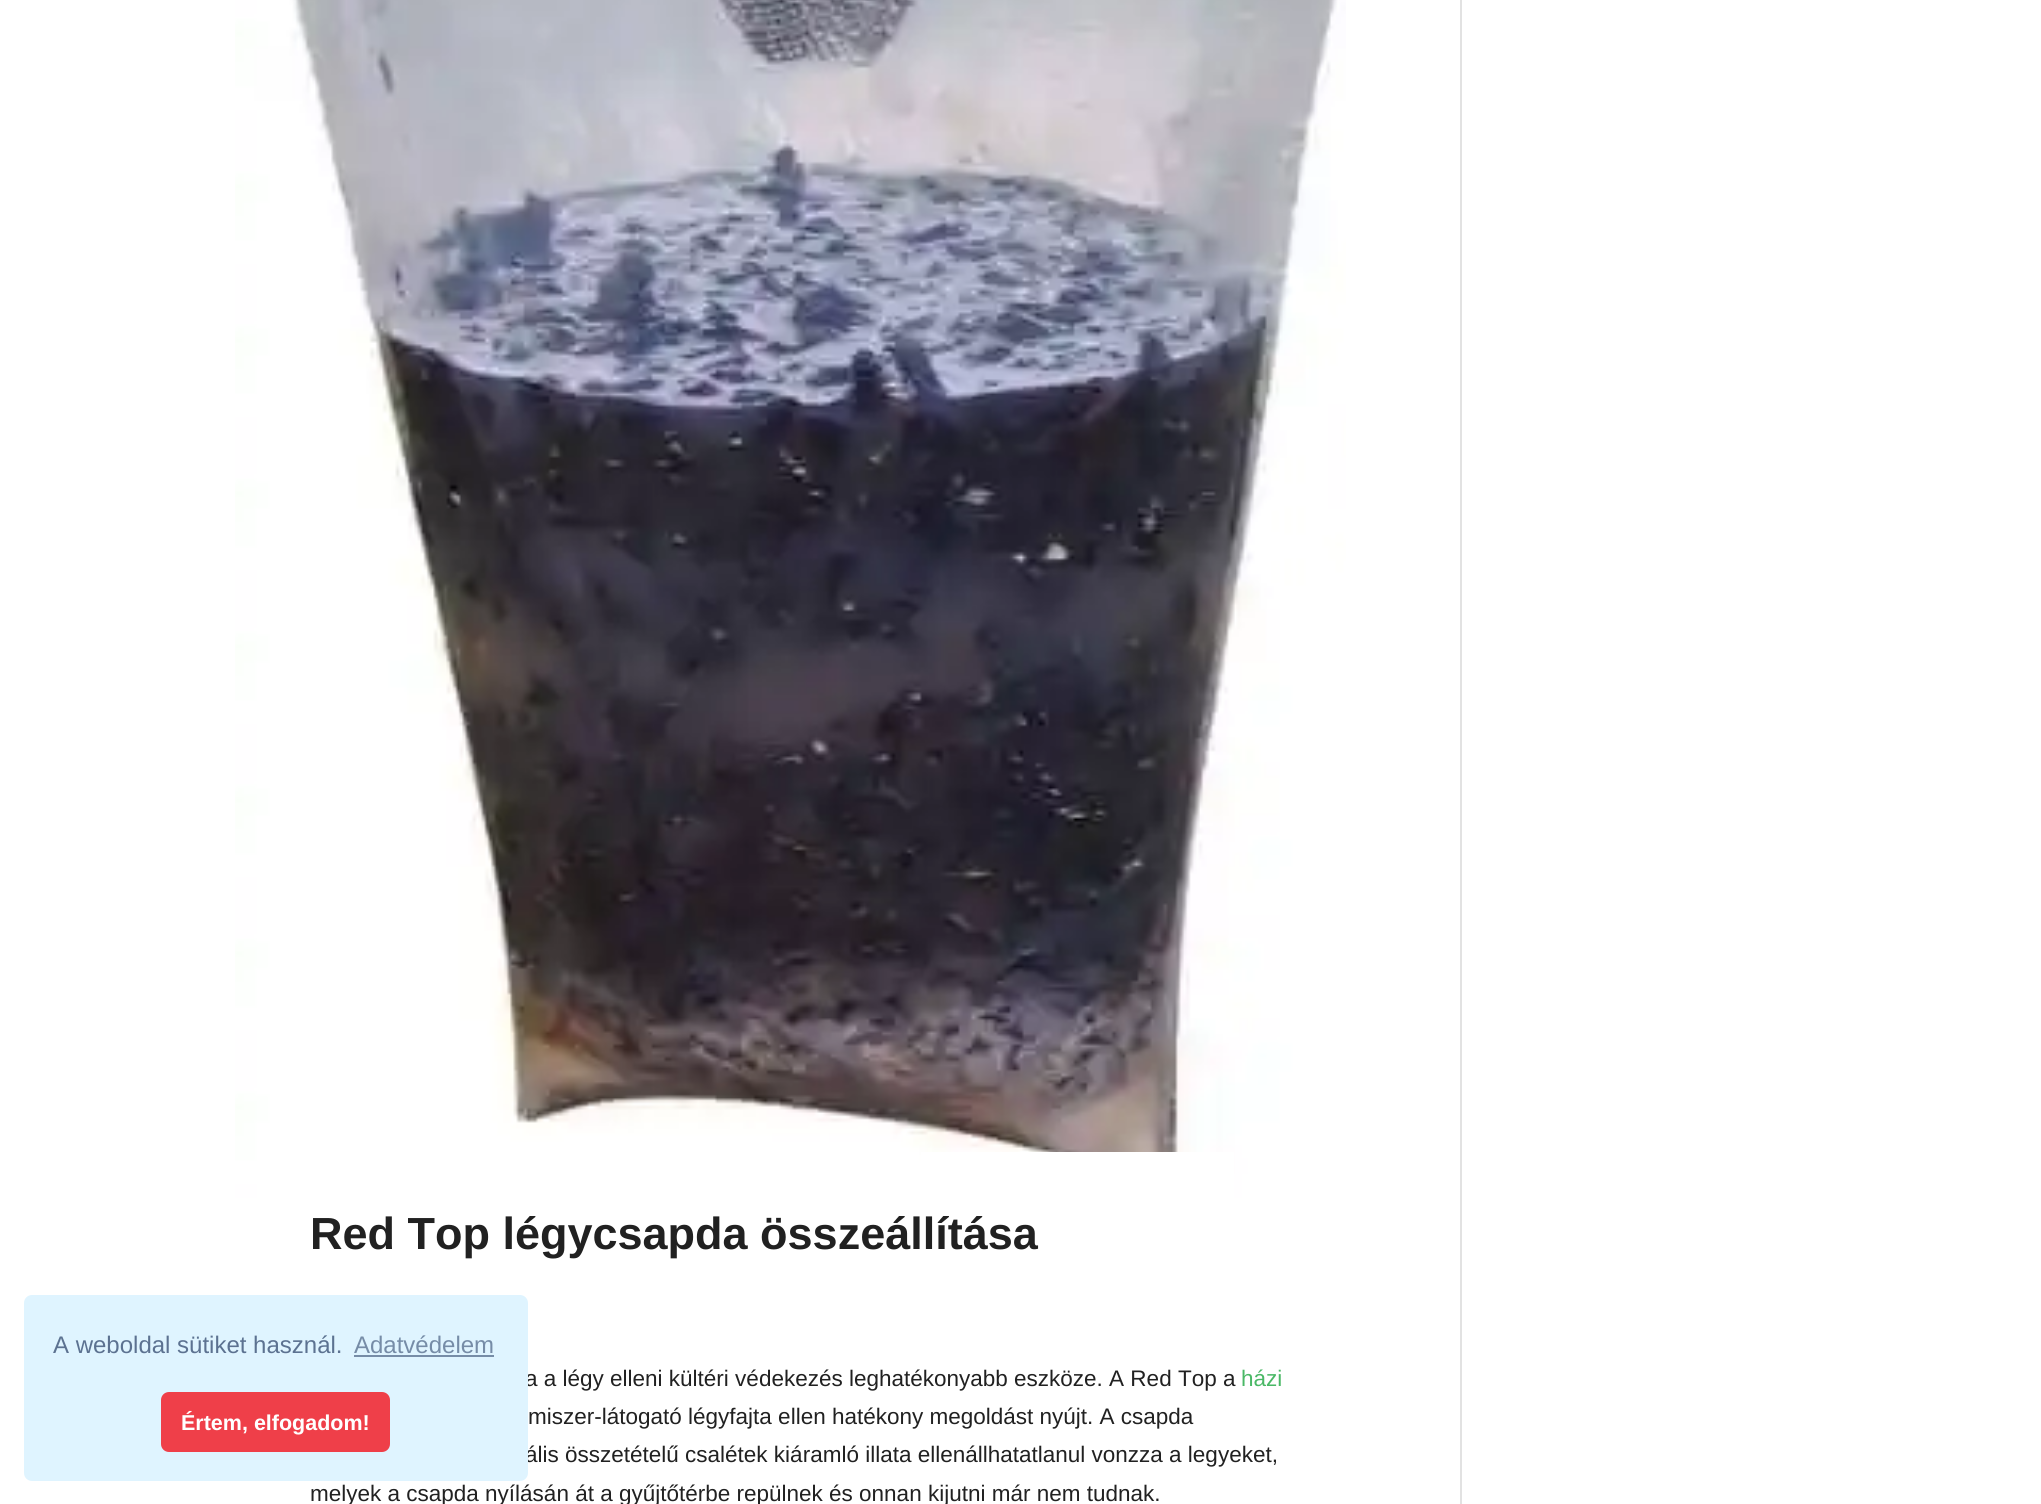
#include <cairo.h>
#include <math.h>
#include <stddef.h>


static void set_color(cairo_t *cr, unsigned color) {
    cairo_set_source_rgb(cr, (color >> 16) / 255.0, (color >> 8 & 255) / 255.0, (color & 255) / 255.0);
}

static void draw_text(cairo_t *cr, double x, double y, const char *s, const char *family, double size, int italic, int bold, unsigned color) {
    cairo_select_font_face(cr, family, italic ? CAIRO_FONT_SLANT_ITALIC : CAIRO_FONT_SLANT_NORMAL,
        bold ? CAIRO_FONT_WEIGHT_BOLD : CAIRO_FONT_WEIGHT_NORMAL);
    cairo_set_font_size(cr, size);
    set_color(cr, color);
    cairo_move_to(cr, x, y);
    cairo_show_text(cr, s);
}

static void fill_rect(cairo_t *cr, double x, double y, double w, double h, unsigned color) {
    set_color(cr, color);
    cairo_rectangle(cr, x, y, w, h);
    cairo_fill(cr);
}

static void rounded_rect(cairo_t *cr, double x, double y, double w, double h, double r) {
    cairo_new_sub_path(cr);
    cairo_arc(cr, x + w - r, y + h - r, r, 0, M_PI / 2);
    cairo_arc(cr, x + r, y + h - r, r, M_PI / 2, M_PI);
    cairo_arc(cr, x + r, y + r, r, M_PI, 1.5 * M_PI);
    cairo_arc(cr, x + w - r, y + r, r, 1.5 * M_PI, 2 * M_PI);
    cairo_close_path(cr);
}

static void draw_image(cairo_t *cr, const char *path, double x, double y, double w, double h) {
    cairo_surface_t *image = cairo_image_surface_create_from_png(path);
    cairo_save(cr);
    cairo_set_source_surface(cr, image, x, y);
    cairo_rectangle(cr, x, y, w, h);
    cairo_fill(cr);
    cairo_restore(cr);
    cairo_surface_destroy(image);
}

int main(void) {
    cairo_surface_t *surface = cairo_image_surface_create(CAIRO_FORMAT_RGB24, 2041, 1504);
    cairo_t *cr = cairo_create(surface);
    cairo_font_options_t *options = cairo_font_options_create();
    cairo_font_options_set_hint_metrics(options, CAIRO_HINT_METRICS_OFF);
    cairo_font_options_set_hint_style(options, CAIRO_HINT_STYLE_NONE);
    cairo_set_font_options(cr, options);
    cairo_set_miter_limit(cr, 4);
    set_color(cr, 0xFFFFFF);
    cairo_paint(cr);
    draw_text(cr, 525, 1386, "a a légy elleni kültéri védekezés leghatékonyabb eszköze. A Red Top a", "Liberation Sans", 22.5, 0, 0, 0x212121);
    draw_text(cr, 525, 1462, "ális összetételű csalétek kiáramló illata ellenállhatatlanul vonzza a legyeket,", "Liberation Sans", 22.5, 0, 0, 0x212121);
    set_color(cr, 0xDFF4FF);
    rounded_rect(cr, 24, 1295, 504, 186, 8);
    cairo_fill(cr);
    draw_text(cr, 53, 1353, "A weboldal sütiket használ.", "Liberation Sans", 24, 0, 0, 0x5C7291);
    draw_text(cr, 354, 1353, "Adatvédelem", "Liberation Sans", 24, 0, 0, 0x768CA7);
    fill_rect(cr, 354, 1355, 140, 2, 0x768CA7);
    set_color(cr, 0xEF3F49);
    rounded_rect(cr, 161, 1392, 229, 60, 8);
    cairo_fill(cr);
    draw_text(cr, 181, 1430, "Értem, elfogadom!", "Liberation Sans", 21.5, 0, 1, 0xFFFFFF);
    draw_image(cr, "assets/img1.png", 235, 0, 1111, 1198);
    fill_rect(cr, 921, 1152, 313, 46, 0xFFFFFF);
    draw_text(cr, 310, 1249, "Red Top légycsapda összeállítása", "Liberation Sans", 45, 0, 1, 0x212121);
    draw_text(cr, 1241, 1386, "házi", "Liberation Sans", 22.5, 0, 0, 0x4AB866);
    draw_text(cr, 528, 1424, "miszer-látogató légyfajta ellen hatékony megoldást nyújt. A csapda", "Liberation Sans", 22.5, 0, 0, 0x212121);
    draw_text(cr, 310, 1501, "melyek a csapda nyílásán át a gyűjtőtérbe repülnek és onnan kijutni már nem tudnak.", "Liberation Sans", 22.5, 0, 0, 0x212121);
    fill_rect(cr, 1460, 0, 2, 1504, 0xE2E2E2);
    cairo_surface_write_to_png(surface, "output.png");
    cairo_font_options_destroy(options);
    cairo_destroy(cr);
    cairo_surface_destroy(surface);
    return 0;
}
